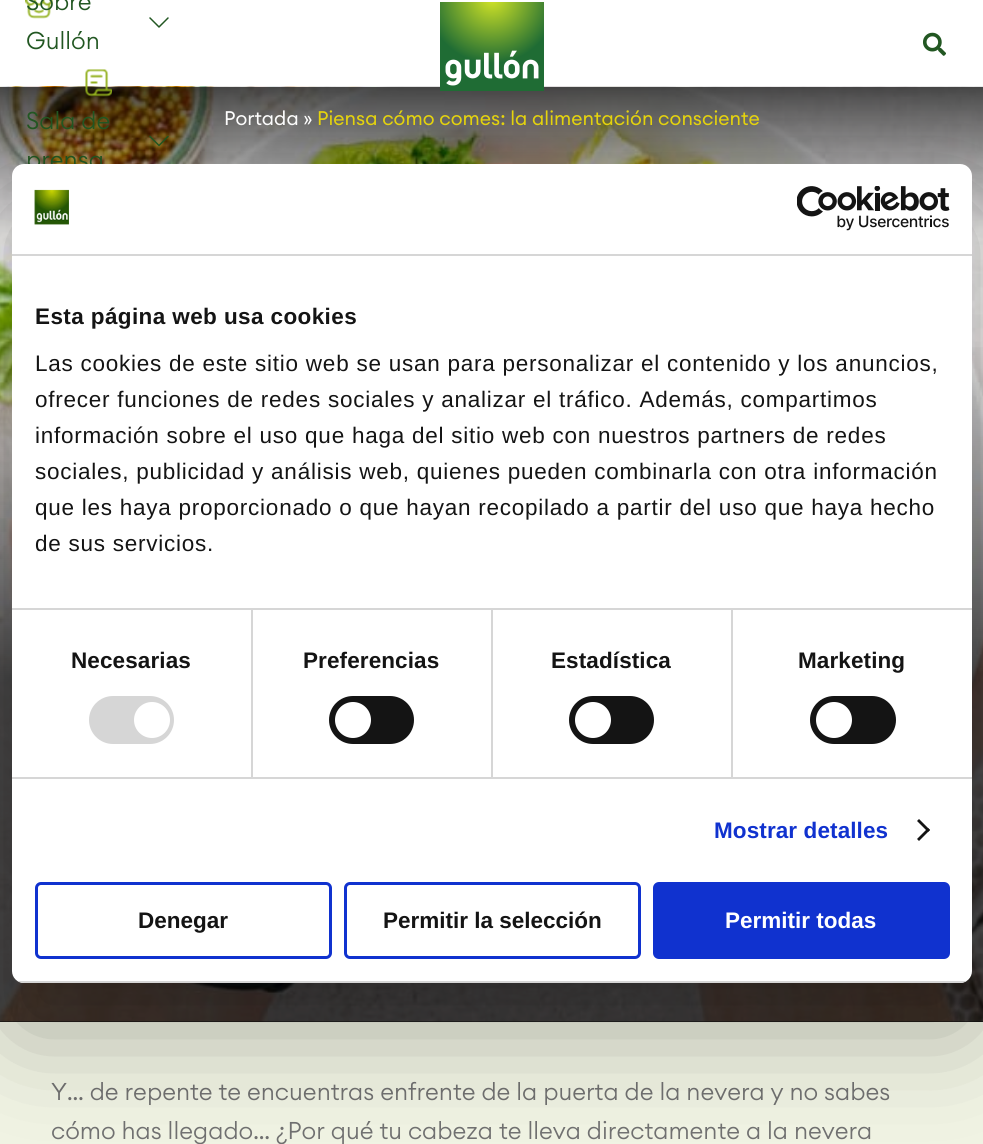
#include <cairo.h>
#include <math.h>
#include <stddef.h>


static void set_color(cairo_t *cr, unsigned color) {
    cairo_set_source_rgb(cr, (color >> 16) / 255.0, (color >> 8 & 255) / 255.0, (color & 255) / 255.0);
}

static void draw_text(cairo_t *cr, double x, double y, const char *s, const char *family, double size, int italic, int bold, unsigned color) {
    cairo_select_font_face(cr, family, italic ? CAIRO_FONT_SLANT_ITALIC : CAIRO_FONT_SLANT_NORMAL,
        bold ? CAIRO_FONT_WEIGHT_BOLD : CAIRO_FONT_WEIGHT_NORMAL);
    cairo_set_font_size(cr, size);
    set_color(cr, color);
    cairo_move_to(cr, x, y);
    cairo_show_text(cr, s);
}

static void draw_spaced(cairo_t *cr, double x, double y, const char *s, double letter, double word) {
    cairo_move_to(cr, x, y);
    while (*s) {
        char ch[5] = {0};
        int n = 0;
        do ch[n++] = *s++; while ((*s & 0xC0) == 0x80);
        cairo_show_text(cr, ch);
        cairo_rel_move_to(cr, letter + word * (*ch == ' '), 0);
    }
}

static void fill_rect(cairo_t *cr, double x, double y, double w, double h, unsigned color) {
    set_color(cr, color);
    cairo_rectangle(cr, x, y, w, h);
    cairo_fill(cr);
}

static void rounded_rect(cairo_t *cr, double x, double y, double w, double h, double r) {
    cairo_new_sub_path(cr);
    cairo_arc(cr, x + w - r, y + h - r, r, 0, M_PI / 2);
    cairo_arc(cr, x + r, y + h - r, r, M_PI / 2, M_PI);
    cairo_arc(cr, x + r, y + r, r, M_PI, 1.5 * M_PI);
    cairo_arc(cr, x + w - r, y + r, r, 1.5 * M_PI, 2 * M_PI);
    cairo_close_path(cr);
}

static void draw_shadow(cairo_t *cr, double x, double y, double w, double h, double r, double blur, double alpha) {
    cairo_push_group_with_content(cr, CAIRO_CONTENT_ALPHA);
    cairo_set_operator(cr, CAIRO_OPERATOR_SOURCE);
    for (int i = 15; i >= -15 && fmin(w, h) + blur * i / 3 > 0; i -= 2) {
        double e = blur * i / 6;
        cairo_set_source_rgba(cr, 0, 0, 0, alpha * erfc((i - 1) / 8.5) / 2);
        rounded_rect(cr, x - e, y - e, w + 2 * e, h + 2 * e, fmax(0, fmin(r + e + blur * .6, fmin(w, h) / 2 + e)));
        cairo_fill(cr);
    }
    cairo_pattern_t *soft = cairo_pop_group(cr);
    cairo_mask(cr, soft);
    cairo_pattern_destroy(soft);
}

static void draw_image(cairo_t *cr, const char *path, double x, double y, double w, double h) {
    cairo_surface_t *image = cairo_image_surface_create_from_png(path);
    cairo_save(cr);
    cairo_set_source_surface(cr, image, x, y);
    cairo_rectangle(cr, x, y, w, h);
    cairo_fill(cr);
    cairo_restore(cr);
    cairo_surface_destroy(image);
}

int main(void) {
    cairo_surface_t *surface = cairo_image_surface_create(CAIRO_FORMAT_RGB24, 983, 1144);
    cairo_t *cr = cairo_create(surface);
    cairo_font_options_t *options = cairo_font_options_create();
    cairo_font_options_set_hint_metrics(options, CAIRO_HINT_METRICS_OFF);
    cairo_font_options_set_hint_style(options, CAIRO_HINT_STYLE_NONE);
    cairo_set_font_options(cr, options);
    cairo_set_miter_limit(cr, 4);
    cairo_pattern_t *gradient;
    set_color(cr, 0xF0F3E3);
    cairo_paint(cr);
    fill_rect(cr, 0, 1021, 983, 1, 0x1B1D1F);
    draw_image(cr, "assets/img7.png", 0, 86, 983, 936);
    set_color(cr, 0x000000);
    draw_shadow(cr, 0, 5, 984, 85, 0, 6, 0.06);
    fill_rect(cr, 0, 0, 983, 86, 0xFFFFFF);
    draw_image(cr, "assets/img1.png", 25, 0, 28, 19);
    draw_text(cr, 26, 10, "Sobre", "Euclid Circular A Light", 24, 0, 0, 0x225722);
    draw_text(cr, 26, 49, "Gullón", "Euclid Circular A Light", 24, 0, 0, 0x225722);
    draw_image(cr, "assets/img2.png", 149, 17, 20, 11);
    draw_image(cr, "assets/img3.png", 85, 69, 27, 28);
    draw_text(cr, 26, 129, "Sala de", "Euclid Circular A Light", 24, 0, 0, 0x225722);
    draw_text(cr, 26, 168, "prensa", "Euclid Circular A Light", 24, 0, 0, 0x225722);
    draw_image(cr, "assets/img4.png", 149, 135, 20, 12);
    draw_image(cr, "assets/img5.png", 440, 2, 104, 89);
    draw_image(cr, "assets/img6.png", 923, 32, 23, 24);
    gradient = cairo_pattern_create_linear(492, 336, 492, 1022);
    cairo_pattern_add_color_stop_rgba(gradient, 0, 0, 0, 0, 0);
    cairo_pattern_add_color_stop_rgba(gradient, 0.5, 0, 0, 0, 0.7);
    cairo_pattern_add_color_stop_rgba(gradient, 1, 0, 0, 0, 0.7);
    cairo_set_source(cr, gradient);
    cairo_pattern_destroy(gradient);
    cairo_rectangle(cr, 0, 347, 983, 675);
    cairo_fill(cr);
    draw_text(cr, 224, 125, "Portada »", "Euclid Circular A", 19.5, 0, 0, 0xFFFFFF);
    draw_text(cr, 317, 125, "Piensa cómo comes: la alimentación consciente", "Euclid Circular A", 19.5, 0, 0, 0xE7D50D);
    draw_text(cr, 51, 1100, "Y… de repente te encuentras enfrente de la puerta de la nevera y no sabes", "Euclid Circular A Light", 24, 0, 0, 0x707070);
    draw_text(cr, 51, 1139, "cómo has llegado… ¿Por qué tu cabeza te lleva directamente a la nevera", "Euclid Circular A Light", 24, 0, 0, 0x707070);
    set_color(cr, 0x000000);
    draw_shadow(cr, 12, 212, 960, 819, 12, 51, 0.3);
    set_color(cr, 0xFFFFFF);
    rounded_rect(cr, 12, 164, 960, 819, 12);
    cairo_fill(cr);
    fill_rect(cr, 12, 254, 960, 2, 0xD6D6D6);
    draw_image(cr, "assets/img8.png", 34, 189, 35, 36);
    draw_image(cr, "assets/img9.png", 797, 186, 153, 45);
    fill_rect(cr, 251, 609, 2, 168, 0xD6D6D6);
    fill_rect(cr, 491, 609, 2, 168, 0xD6D6D6);
    fill_rect(cr, 731, 609, 2, 168, 0xD6D6D6);
    fill_rect(cr, 12, 608, 960, 2, 0xD6D6D6);
    cairo_select_font_face(cr, "Liberation Sans", CAIRO_FONT_SLANT_NORMAL, CAIRO_FONT_WEIGHT_BOLD);
    cairo_set_font_size(cr, 22.5);
    set_color(cr, 0x141414);
    draw_spaced(cr, 35, 324, "Esta página web usa cookies", 0.4, 0);
    cairo_select_font_face(cr, "Liberation Sans", CAIRO_FONT_SLANT_NORMAL, CAIRO_FONT_WEIGHT_NORMAL);
    draw_spaced(cr, 35, 371, "Las cookies de este sitio web se usan para personalizar el contenido y los anuncios,", 0.75, 0);
    draw_spaced(cr, 35, 407, "ofrecer funciones de redes sociales y analizar el tráfico. Además, compartimos", 0.75, 0);
    draw_spaced(cr, 35, 443, "información sobre el uso que haga del sitio web con nuestros partners de redes", 0.75, 0);
    draw_spaced(cr, 35, 479, "sociales, publicidad y análisis web, quienes pueden combinarla con otra información", 0.75, 0);
    draw_spaced(cr, 35, 515, "que les haya proporcionado o que hayan recopilado a partir del uso que haya hecho", 0.75, 0);
    draw_spaced(cr, 35, 551, "de sus servicios.", 0.75, 0);
    fill_rect(cr, 12, 777, 960, 2, 0xD6D6D6);
    cairo_select_font_face(cr, "Liberation Sans", CAIRO_FONT_SLANT_NORMAL, CAIRO_FONT_WEIGHT_BOLD);
    set_color(cr, 0x141414);
    draw_spaced(cr, 71, 668, "Necesarias", 0.1, 0);
    set_color(cr, 0xD6D6D6);
    rounded_rect(cr, 89, 696, 85, 48, 24);
    cairo_fill(cr);
    set_color(cr, 0xFFFFFF);
    cairo_arc(cr, 152, 720, 18, 0, 2 * M_PI);
    cairo_fill(cr);
    set_color(cr, 0x141414);
    draw_spaced(cr, 303, 668, "Preferencias", 0.1, 0);
    rounded_rect(cr, 329, 696, 85, 48, 24);
    cairo_fill(cr);
    set_color(cr, 0xFFFFFF);
    cairo_arc(cr, 353, 720, 18, 0, 2 * M_PI);
    cairo_fill(cr);
    set_color(cr, 0x141414);
    draw_spaced(cr, 551, 668, "Estadística", 0.1, 0);
    rounded_rect(cr, 569, 696, 85, 48, 24);
    cairo_fill(cr);
    set_color(cr, 0xFFFFFF);
    cairo_arc(cr, 593, 720, 18, 0, 2 * M_PI);
    cairo_fill(cr);
    set_color(cr, 0x141414);
    draw_spaced(cr, 798, 668, "Marketing", 0.1, 0);
    rounded_rect(cr, 810, 696, 86, 48, 24);
    cairo_fill(cr);
    set_color(cr, 0xFFFFFF);
    cairo_arc(cr, 834, 720, 18, 0, 2 * M_PI);
    cairo_fill(cr);
    set_color(cr, 0x1032CF);
    draw_spaced(cr, 714, 838, "Mostrar detalles", 0.1, 0);
    set_color(cr, 0x141414);
    cairo_new_path(cr);
    cairo_move_to(cr, 919, 819);
    cairo_line_to(cr, 930, 830);
    cairo_line_to(cr, 928, 832);
    cairo_line_to(cr, 917, 821);
    cairo_close_path(cr);
    cairo_fill(cr);
    cairo_new_path(cr);
    cairo_move_to(cr, 928, 828);
    cairo_line_to(cr, 930, 830);
    cairo_line_to(cr, 919, 841);
    cairo_line_to(cr, 917, 839);
    cairo_close_path(cr);
    cairo_fill(cr);
    cairo_save(cr);
    rounded_rect(cr, 12, 164, 960, 819, 12);
    cairo_clip(cr);
    fill_rect(cr, 12, 981, 960, 2, 0xD6D6D6);
    cairo_restore(cr);
    rounded_rect(cr, 36.5, 883.5, 294, 74, 4.5);
    set_color(cr, 0x1032CF);
    cairo_set_line_width(cr, 3);
    cairo_stroke(cr);
    draw_text(cr, 138, 928, "Denegar", "Liberation Sans", 22.5, 0, 1, 0x141414);
    rounded_rect(cr, 345.5, 883.5, 294, 74, 4.5);
    set_color(cr, 0x1032CF);
    cairo_stroke(cr);
    draw_text(cr, 383, 928, "Permitir la selección", "Liberation Sans", 22.5, 0, 1, 0x141414);
    set_color(cr, 0x1032CF);
    rounded_rect(cr, 654.5, 883.5, 294, 74, 4.5);
    cairo_fill_preserve(cr);
    cairo_stroke(cr);
    draw_text(cr, 725, 928, "Permitir todas", "Liberation Sans", 22.5, 0, 1, 0xFFFFFF);
    cairo_surface_write_to_png(surface, "output.png");
    cairo_font_options_destroy(options);
    cairo_destroy(cr);
    cairo_surface_destroy(surface);
    return 0;
}
